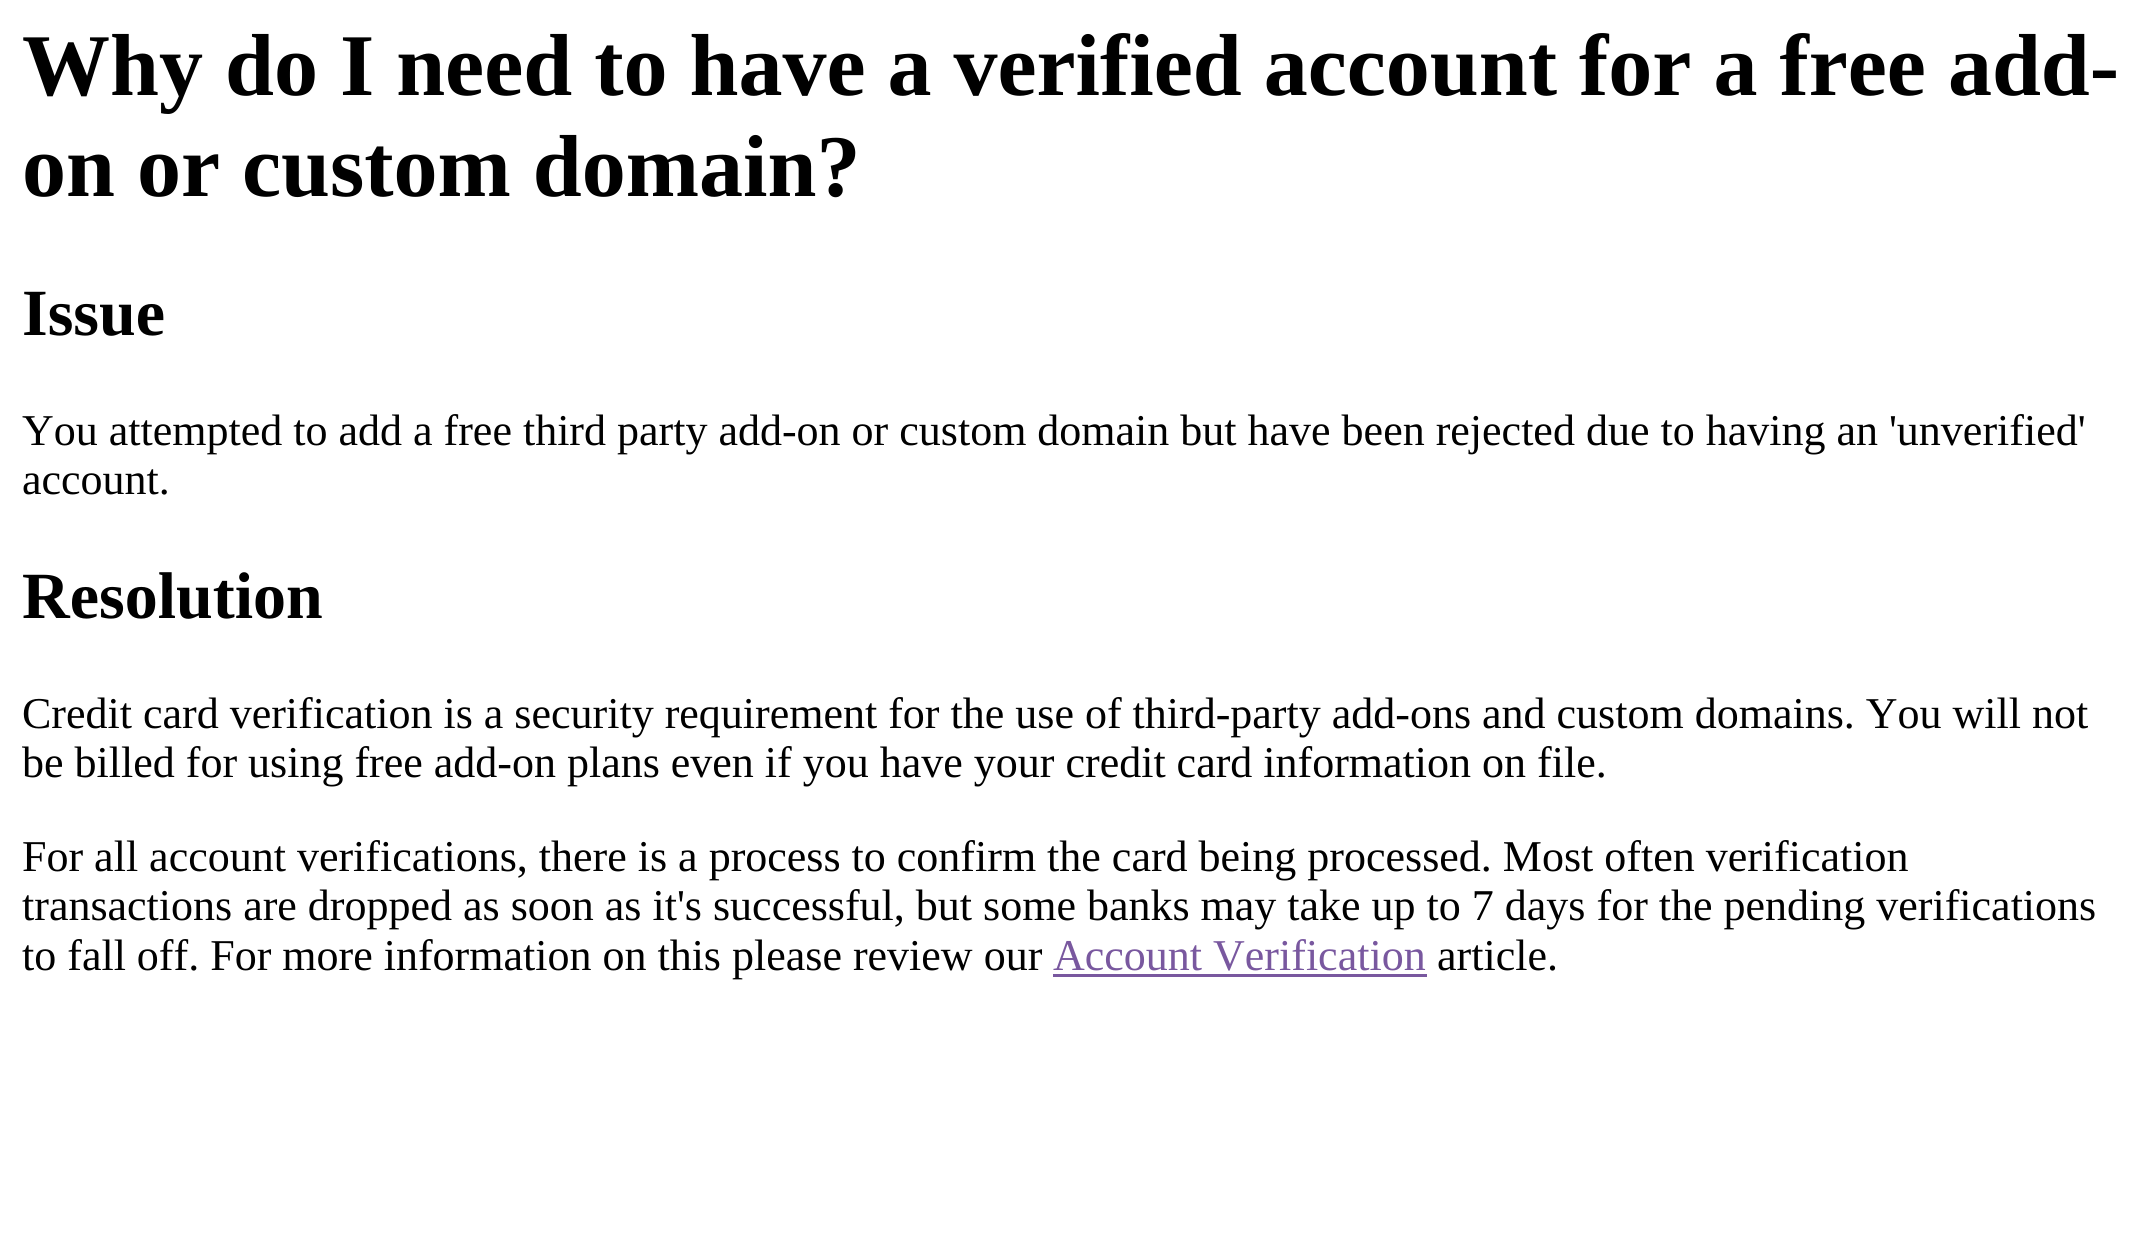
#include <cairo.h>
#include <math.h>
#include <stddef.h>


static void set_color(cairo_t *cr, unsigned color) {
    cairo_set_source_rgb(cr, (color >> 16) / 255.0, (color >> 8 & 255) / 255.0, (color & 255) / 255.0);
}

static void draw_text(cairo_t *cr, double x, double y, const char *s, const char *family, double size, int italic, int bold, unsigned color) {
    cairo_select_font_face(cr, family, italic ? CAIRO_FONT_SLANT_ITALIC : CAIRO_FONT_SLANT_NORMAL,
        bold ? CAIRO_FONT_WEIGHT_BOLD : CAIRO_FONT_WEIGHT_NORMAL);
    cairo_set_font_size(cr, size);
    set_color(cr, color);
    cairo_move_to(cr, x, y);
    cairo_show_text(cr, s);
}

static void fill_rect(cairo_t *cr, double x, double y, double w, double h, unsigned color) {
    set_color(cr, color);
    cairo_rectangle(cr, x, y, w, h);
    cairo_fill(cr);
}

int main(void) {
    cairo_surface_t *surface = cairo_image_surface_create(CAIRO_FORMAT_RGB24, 2145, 1259);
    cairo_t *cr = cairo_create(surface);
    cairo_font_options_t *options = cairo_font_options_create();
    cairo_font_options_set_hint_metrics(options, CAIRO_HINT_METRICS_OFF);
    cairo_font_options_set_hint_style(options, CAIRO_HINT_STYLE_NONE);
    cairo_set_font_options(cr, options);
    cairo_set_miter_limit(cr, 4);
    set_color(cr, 0xFFFFFF);
    cairo_paint(cr);
    draw_text(cr, 22, 95, "Why do I need to have a verified account for a free add-", "Liberation Serif", 88, 0, 1, 0x000000);
    draw_text(cr, 22, 196, "on or custom domain?", "Liberation Serif", 88, 0, 1, 0x000000);
    draw_text(cr, 22, 335, "Issue", "Liberation Serif", 66, 0, 1, 0x000000);
    draw_text(cr, 22, 445, "You attempted to add a free third party add-on or custom domain but have been rejected due to having an 'unverified'", "Liberation Serif", 44, 0, 0, 0x000000);
    draw_text(cr, 22, 494, "account.", "Liberation Serif", 44, 0, 0, 0x000000);
    draw_text(cr, 22, 618, "Resolution", "Liberation Serif", 66, 0, 1, 0x000000);
    draw_text(cr, 22, 728, "Credit card verification is a security requirement for the use of third-party add-ons and custom domains. You will not", "Liberation Serif", 44, 0, 0, 0x000000);
    draw_text(cr, 22, 777, "be billed for using free add-on plans even if you have your credit card information on file.", "Liberation Serif", 44, 0, 0, 0x000000);
    draw_text(cr, 22, 871, "For all account verifications, there is a process to confirm the card being processed. Most often verification", "Liberation Serif", 44, 0, 0, 0x000000);
    draw_text(cr, 22, 920, "transactions are dropped as soon as it's successful, but some banks may take up to 7 days for the pending verifications", "Liberation Serif", 44, 0, 0, 0x000000);
    draw_text(cr, 22, 970, "to fall off. For more information on this please review our", "Liberation Serif", 44, 0, 0, 0x000000);
    draw_text(cr, 1053, 970, "Account Verification", "Liberation Serif", 44, 0, 0, 0x79589F);
    fill_rect(cr, 1053, 974, 374, 3, 0x79589F);
    draw_text(cr, 1437, 970, "article.", "Liberation Serif", 44, 0, 0, 0x000000);
    cairo_surface_write_to_png(surface, "output.png");
    cairo_font_options_destroy(options);
    cairo_destroy(cr);
    cairo_surface_destroy(surface);
    return 0;
}
